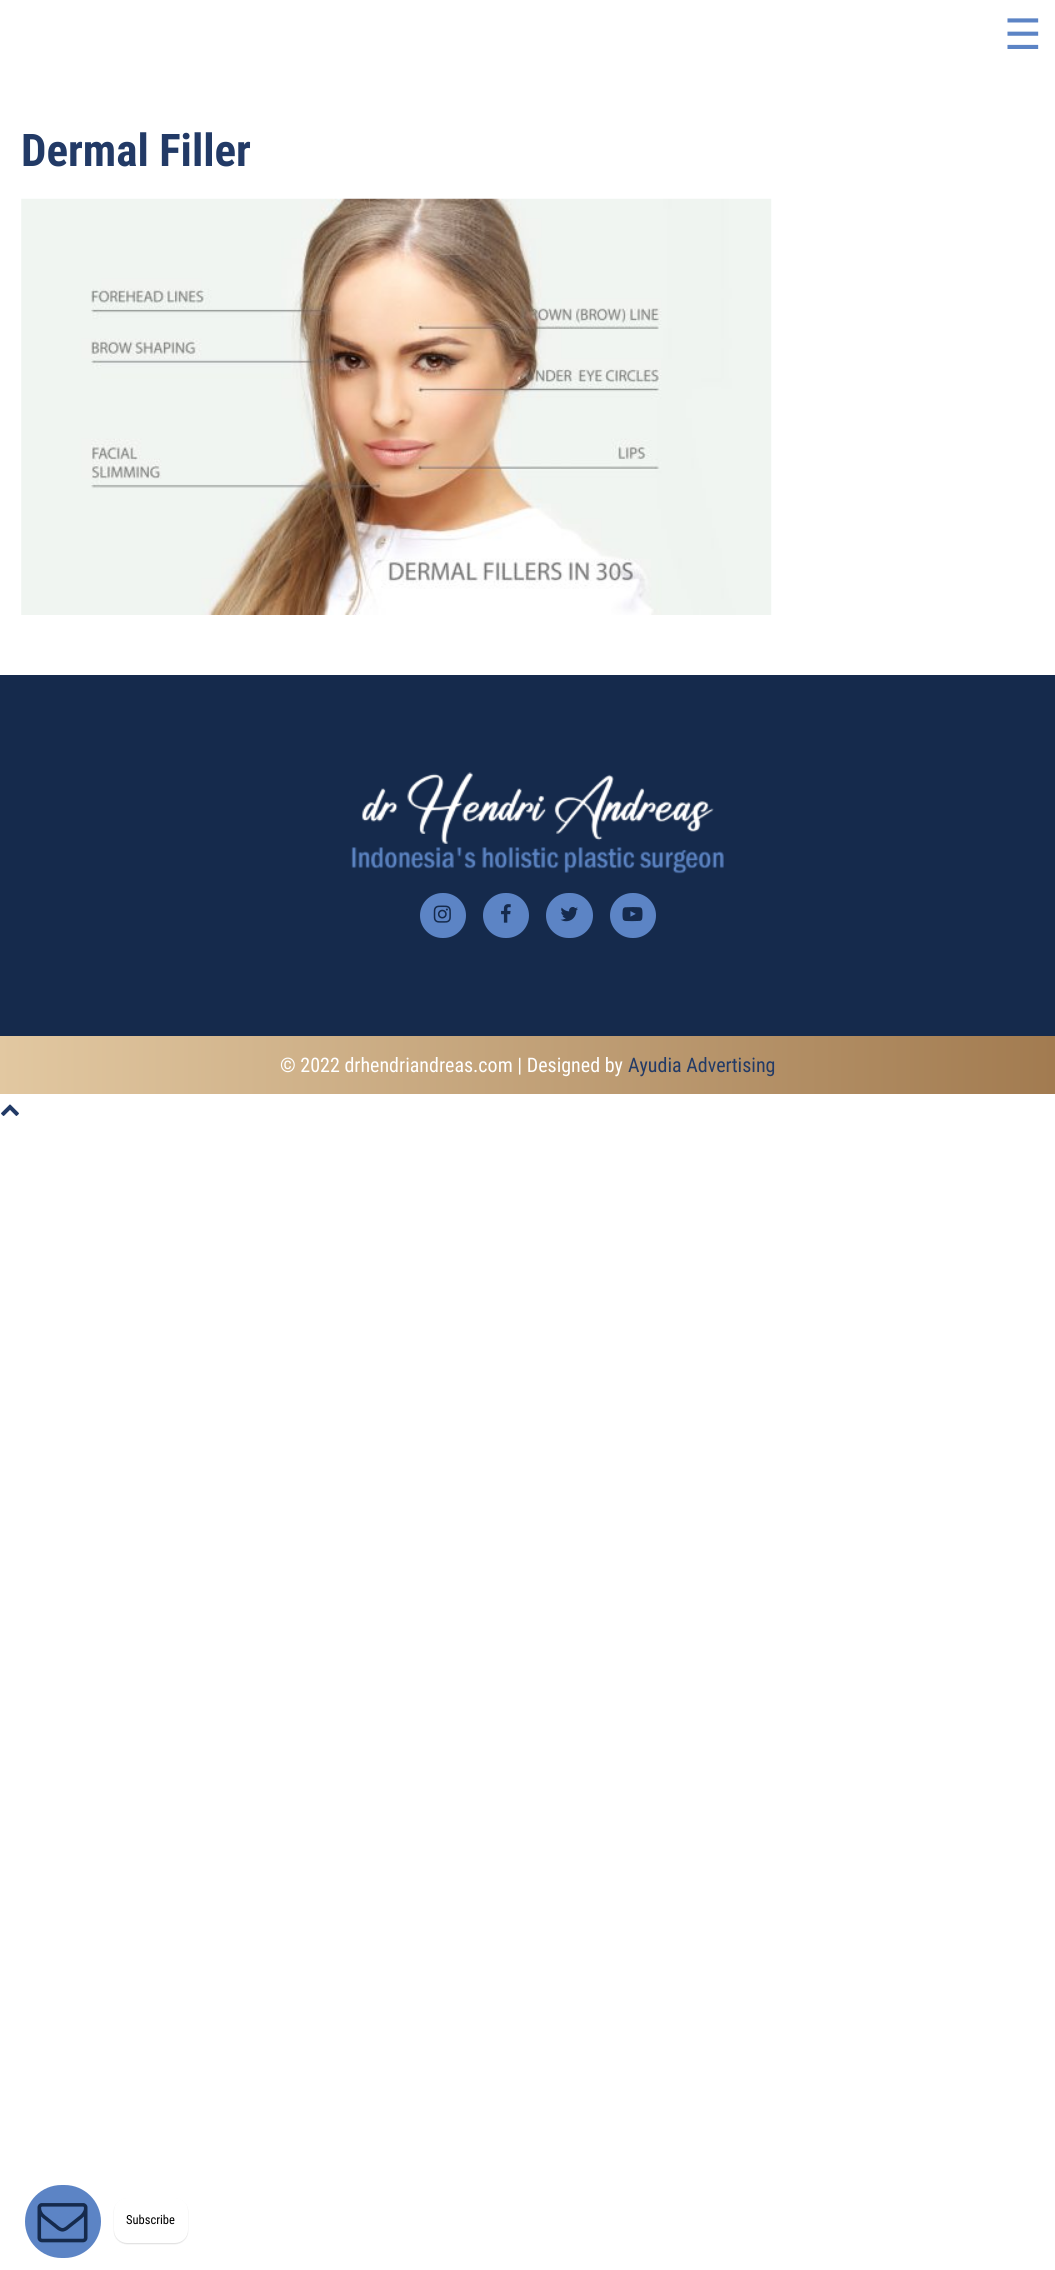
#include <cairo.h>
#include <math.h>
#include <stddef.h>


static void set_color(cairo_t *cr, unsigned color) {
    cairo_set_source_rgb(cr, (color >> 16) / 255.0, (color >> 8 & 255) / 255.0, (color & 255) / 255.0);
}

static void draw_text(cairo_t *cr, double x, double y, const char *s, const char *family, double size, int italic, int bold, unsigned color) {
    cairo_select_font_face(cr, family, italic ? CAIRO_FONT_SLANT_ITALIC : CAIRO_FONT_SLANT_NORMAL,
        bold ? CAIRO_FONT_WEIGHT_BOLD : CAIRO_FONT_WEIGHT_NORMAL);
    cairo_set_font_size(cr, size);
    set_color(cr, color);
    cairo_move_to(cr, x, y);
    cairo_show_text(cr, s);
}

static void fill_rect(cairo_t *cr, double x, double y, double w, double h, unsigned color) {
    set_color(cr, color);
    cairo_rectangle(cr, x, y, w, h);
    cairo_fill(cr);
}

static void rounded_rect(cairo_t *cr, double x, double y, double w, double h, double r) {
    cairo_new_sub_path(cr);
    cairo_arc(cr, x + w - r, y + h - r, r, 0, M_PI / 2);
    cairo_arc(cr, x + r, y + h - r, r, M_PI / 2, M_PI);
    cairo_arc(cr, x + r, y + r, r, M_PI, 1.5 * M_PI);
    cairo_arc(cr, x + w - r, y + r, r, 1.5 * M_PI, 2 * M_PI);
    cairo_close_path(cr);
}

static void draw_shadow(cairo_t *cr, double x, double y, double w, double h, double r, double blur, double alpha) {
    cairo_push_group_with_content(cr, CAIRO_CONTENT_ALPHA);
    cairo_set_operator(cr, CAIRO_OPERATOR_SOURCE);
    for (int i = 15; i >= -15 && fmin(w, h) + blur * i / 3 > 0; i -= 2) {
        double e = blur * i / 6;
        cairo_set_source_rgba(cr, 0, 0, 0, alpha * erfc((i - 1) / 8.5) / 2);
        rounded_rect(cr, x - e, y - e, w + 2 * e, h + 2 * e, fmax(0, fmin(r + e + blur * .6, fmin(w, h) / 2 + e)));
        cairo_fill(cr);
    }
    cairo_pattern_t *soft = cairo_pop_group(cr);
    cairo_mask(cr, soft);
    cairo_pattern_destroy(soft);
}

static void draw_image(cairo_t *cr, const char *path, double x, double y, double w, double h) {
    cairo_surface_t *image = cairo_image_surface_create_from_png(path);
    cairo_save(cr);
    cairo_set_source_surface(cr, image, x, y);
    cairo_rectangle(cr, x, y, w, h);
    cairo_fill(cr);
    cairo_restore(cr);
    cairo_surface_destroy(image);
}

int main(void) {
    cairo_surface_t *surface = cairo_image_surface_create(CAIRO_FORMAT_RGB24, 1055, 2270);
    cairo_t *cr = cairo_create(surface);
    cairo_font_options_t *options = cairo_font_options_create();
    cairo_font_options_set_hint_metrics(options, CAIRO_HINT_METRICS_OFF);
    cairo_font_options_set_hint_style(options, CAIRO_HINT_STYLE_NONE);
    cairo_set_font_options(cr, options);
    cairo_set_miter_limit(cr, 4);
    cairo_pattern_t *gradient;
    set_color(cr, 0xFFFFFF);
    cairo_paint(cr);
    draw_text(cr, 1004, 49, "☰", "DejaVu Sans", 42, 0, 0, 0x5C84C5);
    draw_text(cr, 21, 166, "Dermal Filler", "Roboto Condensed", 45, 0, 1, 0x223A66);
    draw_image(cr, "assets/img1.png", 21, 198, 751, 417);
    fill_rect(cr, 0, 675, 1055, 361, 0x152A4C);
    draw_image(cr, "assets/img2.png", 351, 772, 373, 102);
    set_color(cr, 0x5C84C5);
    rounded_rect(cr, 420, 893, 46, 45, 22.5);
    cairo_fill(cr);
    draw_image(cr, "assets/img3.png", 433, 905, 18, 18);
    rounded_rect(cr, 483, 893, 46, 45, 22.5);
    cairo_fill(cr);
    draw_image(cr, "assets/img4.png", 501, 904, 10, 19);
    rounded_rect(cr, 546, 893, 47, 45, 22.5);
    cairo_fill(cr);
    draw_image(cr, "assets/img5.png", 560, 907, 18, 15);
    rounded_rect(cr, 610, 893, 46, 45, 22.5);
    cairo_fill(cr);
    draw_image(cr, "assets/img6.png", 622, 907, 21, 15);
    gradient = cairo_pattern_create_linear(0, 1065, 1055, 1065);
    cairo_pattern_add_color_stop_rgba(gradient, 0, 0.886, 0.784, 0.631, 1);
    cairo_pattern_add_color_stop_rgba(gradient, 1, 0.635, 0.482, 0.314, 1);
    cairo_set_source(cr, gradient);
    cairo_pattern_destroy(gradient);
    cairo_rectangle(cr, 0, 1036, 1055, 58);
    cairo_fill(cr);
    draw_text(cr, 280, 1072, "© 2022 drhendriandreas.com | Designed by", "Roboto Condensed", 20, 0, 0, 0xFFFFFF);
    draw_text(cr, 628, 1072, "Ayudia Advertising", "Roboto Condensed", 20, 0, 0, 0x223A66);
    draw_image(cr, "assets/img7.png", 1, 1104, 18, 12);
    set_color(cr, 0x5C84C5);
    rounded_rect(cr, 25, 2185, 76, 73, 36.5);
    cairo_fill(cr);
    draw_image(cr, "assets/img8.png", 37, 2203, 51, 40);
    set_color(cr, 0x000000);
    draw_shadow(cr, 114, 2199, 74, 45, 13, 0.5, 0.13);
    set_color(cr, 0xFFFFFF);
    rounded_rect(cr, 114, 2198, 74, 45, 13);
    cairo_fill(cr);
    draw_text(cr, 126, 2224, "Subscribe", "Roboto Condensed", 12.5, 0, 0, 0x000000);
    cairo_surface_write_to_png(surface, "output.png");
    cairo_font_options_destroy(options);
    cairo_destroy(cr);
    cairo_surface_destroy(surface);
    return 0;
}
